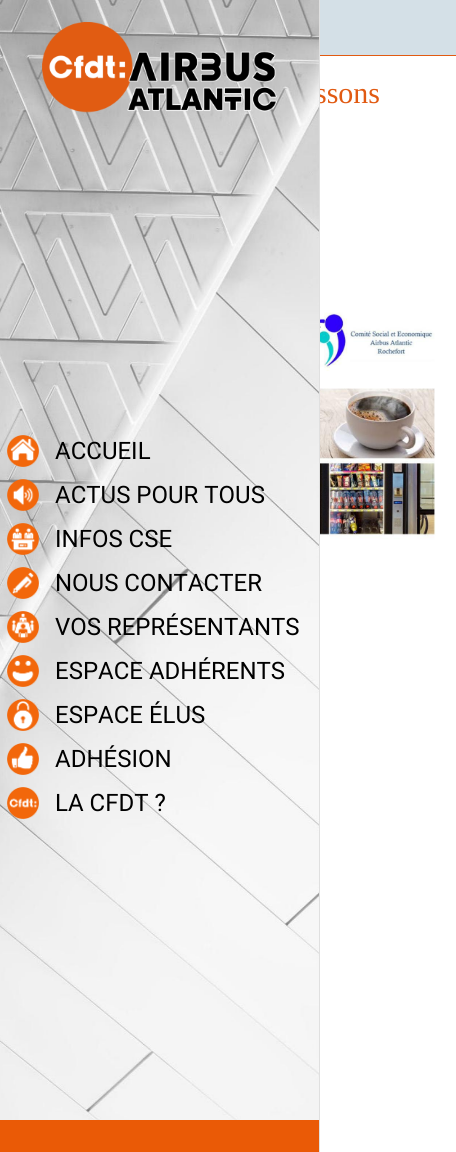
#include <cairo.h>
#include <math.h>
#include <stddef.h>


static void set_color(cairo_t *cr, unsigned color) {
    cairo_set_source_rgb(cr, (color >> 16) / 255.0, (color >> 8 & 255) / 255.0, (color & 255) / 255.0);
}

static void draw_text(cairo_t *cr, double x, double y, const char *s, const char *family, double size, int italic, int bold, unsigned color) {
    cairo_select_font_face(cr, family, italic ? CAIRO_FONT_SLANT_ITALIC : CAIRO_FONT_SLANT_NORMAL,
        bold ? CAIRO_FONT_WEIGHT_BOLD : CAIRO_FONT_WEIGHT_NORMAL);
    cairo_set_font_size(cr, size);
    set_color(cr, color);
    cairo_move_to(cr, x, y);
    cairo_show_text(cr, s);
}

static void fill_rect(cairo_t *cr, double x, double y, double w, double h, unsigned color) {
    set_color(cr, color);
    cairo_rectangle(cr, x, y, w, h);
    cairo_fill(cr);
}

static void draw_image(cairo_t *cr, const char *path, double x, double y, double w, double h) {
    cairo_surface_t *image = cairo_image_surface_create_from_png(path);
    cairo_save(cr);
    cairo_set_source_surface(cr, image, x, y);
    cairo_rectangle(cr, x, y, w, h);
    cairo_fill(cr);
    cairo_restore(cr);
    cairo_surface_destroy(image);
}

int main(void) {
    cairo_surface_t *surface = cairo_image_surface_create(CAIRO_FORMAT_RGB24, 456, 1152);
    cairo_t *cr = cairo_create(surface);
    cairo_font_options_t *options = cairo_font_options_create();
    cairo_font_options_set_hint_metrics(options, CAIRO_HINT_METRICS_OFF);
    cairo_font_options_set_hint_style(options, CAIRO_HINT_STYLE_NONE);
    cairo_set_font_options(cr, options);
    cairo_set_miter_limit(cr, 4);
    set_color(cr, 0xFFFFFF);
    cairo_paint(cr);
    fill_rect(cr, 320, 0, 136, 55, 0xD4E0E7);
    fill_rect(cr, 320, 55, 136, 1, 0xE15A12);
    draw_text(cr, 315, 103, "ssons", "Liberation Serif", 30, 0, 0, 0xE15A12);
    draw_image(cr, "assets/img1.png", 320, 301, 116, 245);
    fill_rect(cr, 319, 0, 1, 1152, 0xE0E0E0);
    draw_image(cr, "assets/img2.png", 0, 0, 319, 1120);
    draw_image(cr, "assets/img3.png", 42, 22, 235, 91);
    draw_image(cr, "assets/img4.png", 7, 435, 32, 32);
    draw_text(cr, 55, 459, "ACCUEIL", "Roboto", 24, 0, 0, 0x000000);
    draw_image(cr, "assets/img5.png", 7, 479, 32, 32);
    draw_text(cr, 55, 503, "ACTUS POUR TOUS", "Roboto", 24, 0, 0, 0x000000);
    draw_image(cr, "assets/img6.png", 7, 523, 32, 32);
    draw_text(cr, 55, 547, "INFOS CSE", "Roboto", 24, 0, 0, 0x000000);
    draw_image(cr, "assets/img7.png", 7, 567, 32, 32);
    draw_text(cr, 55, 591, "NOUS CONTACTER", "Roboto", 24, 0, 0, 0x000000);
    draw_image(cr, "assets/img8.png", 7, 611, 32, 32);
    draw_text(cr, 55, 635, "VOS REPRÉSENTANTS", "Roboto", 24, 0, 0, 0x000000);
    draw_image(cr, "assets/img9.png", 7, 655, 32, 32);
    draw_text(cr, 55, 679, "ESPACE ADHÉRENTS", "Roboto", 24, 0, 0, 0x000000);
    draw_image(cr, "assets/img10.png", 7, 699, 32, 32);
    draw_text(cr, 55, 723, "ESPACE ÉLUS", "Roboto", 24, 0, 0, 0x000000);
    draw_image(cr, "assets/img11.png", 7, 743, 32, 32);
    draw_text(cr, 55, 767, "ADHÉSION", "Roboto", 24, 0, 0, 0x000000);
    draw_image(cr, "assets/img12.png", 7, 787, 32, 32);
    draw_text(cr, 55, 811, "LA CFDT ?", "Roboto", 24, 0, 0, 0x000000);
    fill_rect(cr, 0, 1120, 319, 32, 0xEA5A06);
    cairo_surface_write_to_png(surface, "output.png");
    cairo_font_options_destroy(options);
    cairo_destroy(cr);
    cairo_surface_destroy(surface);
    return 0;
}
